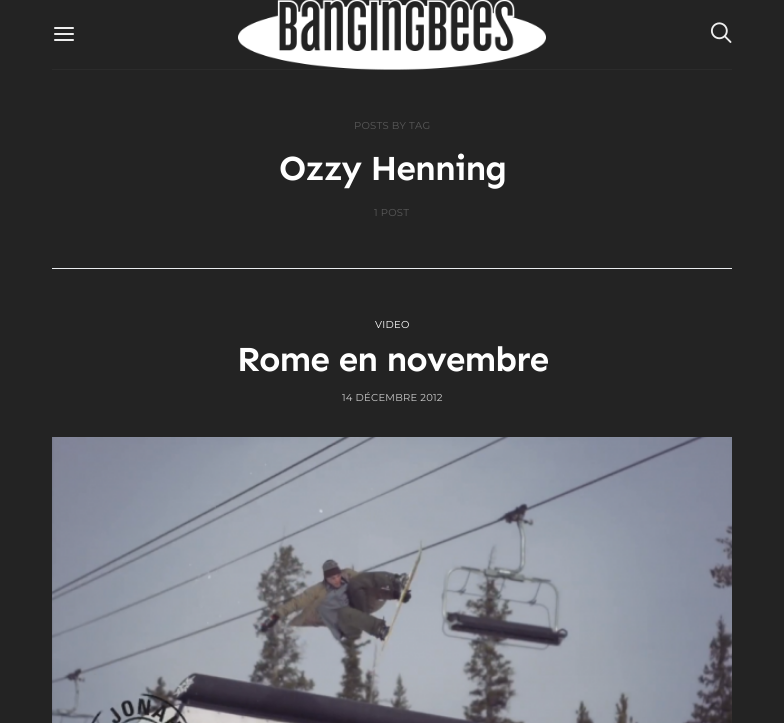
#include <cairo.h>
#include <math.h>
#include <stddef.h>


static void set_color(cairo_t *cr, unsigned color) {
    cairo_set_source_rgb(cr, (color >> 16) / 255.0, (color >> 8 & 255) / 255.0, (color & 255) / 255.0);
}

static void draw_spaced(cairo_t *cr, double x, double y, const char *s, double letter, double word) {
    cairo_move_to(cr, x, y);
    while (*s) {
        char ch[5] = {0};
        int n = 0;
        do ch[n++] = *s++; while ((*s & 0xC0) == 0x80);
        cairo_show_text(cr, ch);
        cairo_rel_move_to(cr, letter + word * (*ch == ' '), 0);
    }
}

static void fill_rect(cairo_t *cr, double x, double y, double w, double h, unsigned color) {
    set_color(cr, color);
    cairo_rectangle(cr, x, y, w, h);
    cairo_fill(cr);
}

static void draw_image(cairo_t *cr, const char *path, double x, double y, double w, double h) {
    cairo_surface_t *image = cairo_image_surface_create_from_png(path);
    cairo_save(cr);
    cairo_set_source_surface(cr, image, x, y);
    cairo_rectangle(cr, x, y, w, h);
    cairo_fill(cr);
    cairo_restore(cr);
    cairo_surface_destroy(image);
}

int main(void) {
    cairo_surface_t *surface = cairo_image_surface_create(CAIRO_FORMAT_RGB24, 784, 723);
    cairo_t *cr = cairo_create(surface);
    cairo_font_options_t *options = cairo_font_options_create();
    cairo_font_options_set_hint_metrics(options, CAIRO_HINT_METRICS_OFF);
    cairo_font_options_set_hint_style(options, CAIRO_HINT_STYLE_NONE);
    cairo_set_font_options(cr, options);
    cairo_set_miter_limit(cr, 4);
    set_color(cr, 0x232323);
    cairo_paint(cr);
    fill_rect(cr, 52, 69, 680, 1, 0x2B2B2B);
    draw_image(cr, "assets/img1.png", 54, 27, 20, 14);
    draw_image(cr, "assets/img2.png", 238, 0, 308, 70);
    draw_image(cr, "assets/img3.png", 710, 22, 22, 21);
    cairo_select_font_face(cr, "Montserrat", CAIRO_FONT_SLANT_NORMAL, CAIRO_FONT_WEIGHT_NORMAL);
    cairo_set_font_size(cr, 10);
    set_color(cr, 0x595959);
    draw_spaced(cr, 354, 129, "POSTS BY TAG", 0.25, 0);
    cairo_select_font_face(cr, "Sen", CAIRO_FONT_SLANT_NORMAL, CAIRO_FONT_WEIGHT_BOLD);
    cairo_set_font_size(cr, 35.25);
    set_color(cr, 0xFFFFFF);
    draw_spaced(cr, 279, 180, "Ozzy Henning", -1, 0);
    cairo_select_font_face(cr, "Montserrat", CAIRO_FONT_SLANT_NORMAL, CAIRO_FONT_WEIGHT_NORMAL);
    cairo_set_font_size(cr, 10);
    set_color(cr, 0x595959);
    draw_spaced(cr, 374, 216, "1 POST", 0.25, 0);
    fill_rect(cr, 52, 268, 680, 1, 0xE9ECEF);
    set_color(cr, 0xFFFFFF);
    draw_spaced(cr, 375, 328, "VIDEO", 0.25, 0);
    cairo_select_font_face(cr, "Sen", CAIRO_FONT_SLANT_NORMAL, CAIRO_FONT_WEIGHT_BOLD);
    cairo_set_font_size(cr, 35.25);
    draw_spaced(cr, 237, 371, "Rome en novembre", -1, 0);
    cairo_select_font_face(cr, "Montserrat", CAIRO_FONT_SLANT_NORMAL, CAIRO_FONT_WEIGHT_NORMAL);
    cairo_set_font_size(cr, 10);
    set_color(cr, 0xCCCCCC);
    draw_spaced(cr, 342, 401, "14 DÉCEMBRE 2012", 0.25, 0);
    draw_image(cr, "assets/img4.png", 52, 437, 680, 286);
    cairo_surface_write_to_png(surface, "output.png");
    cairo_font_options_destroy(options);
    cairo_destroy(cr);
    cairo_surface_destroy(surface);
    return 0;
}
